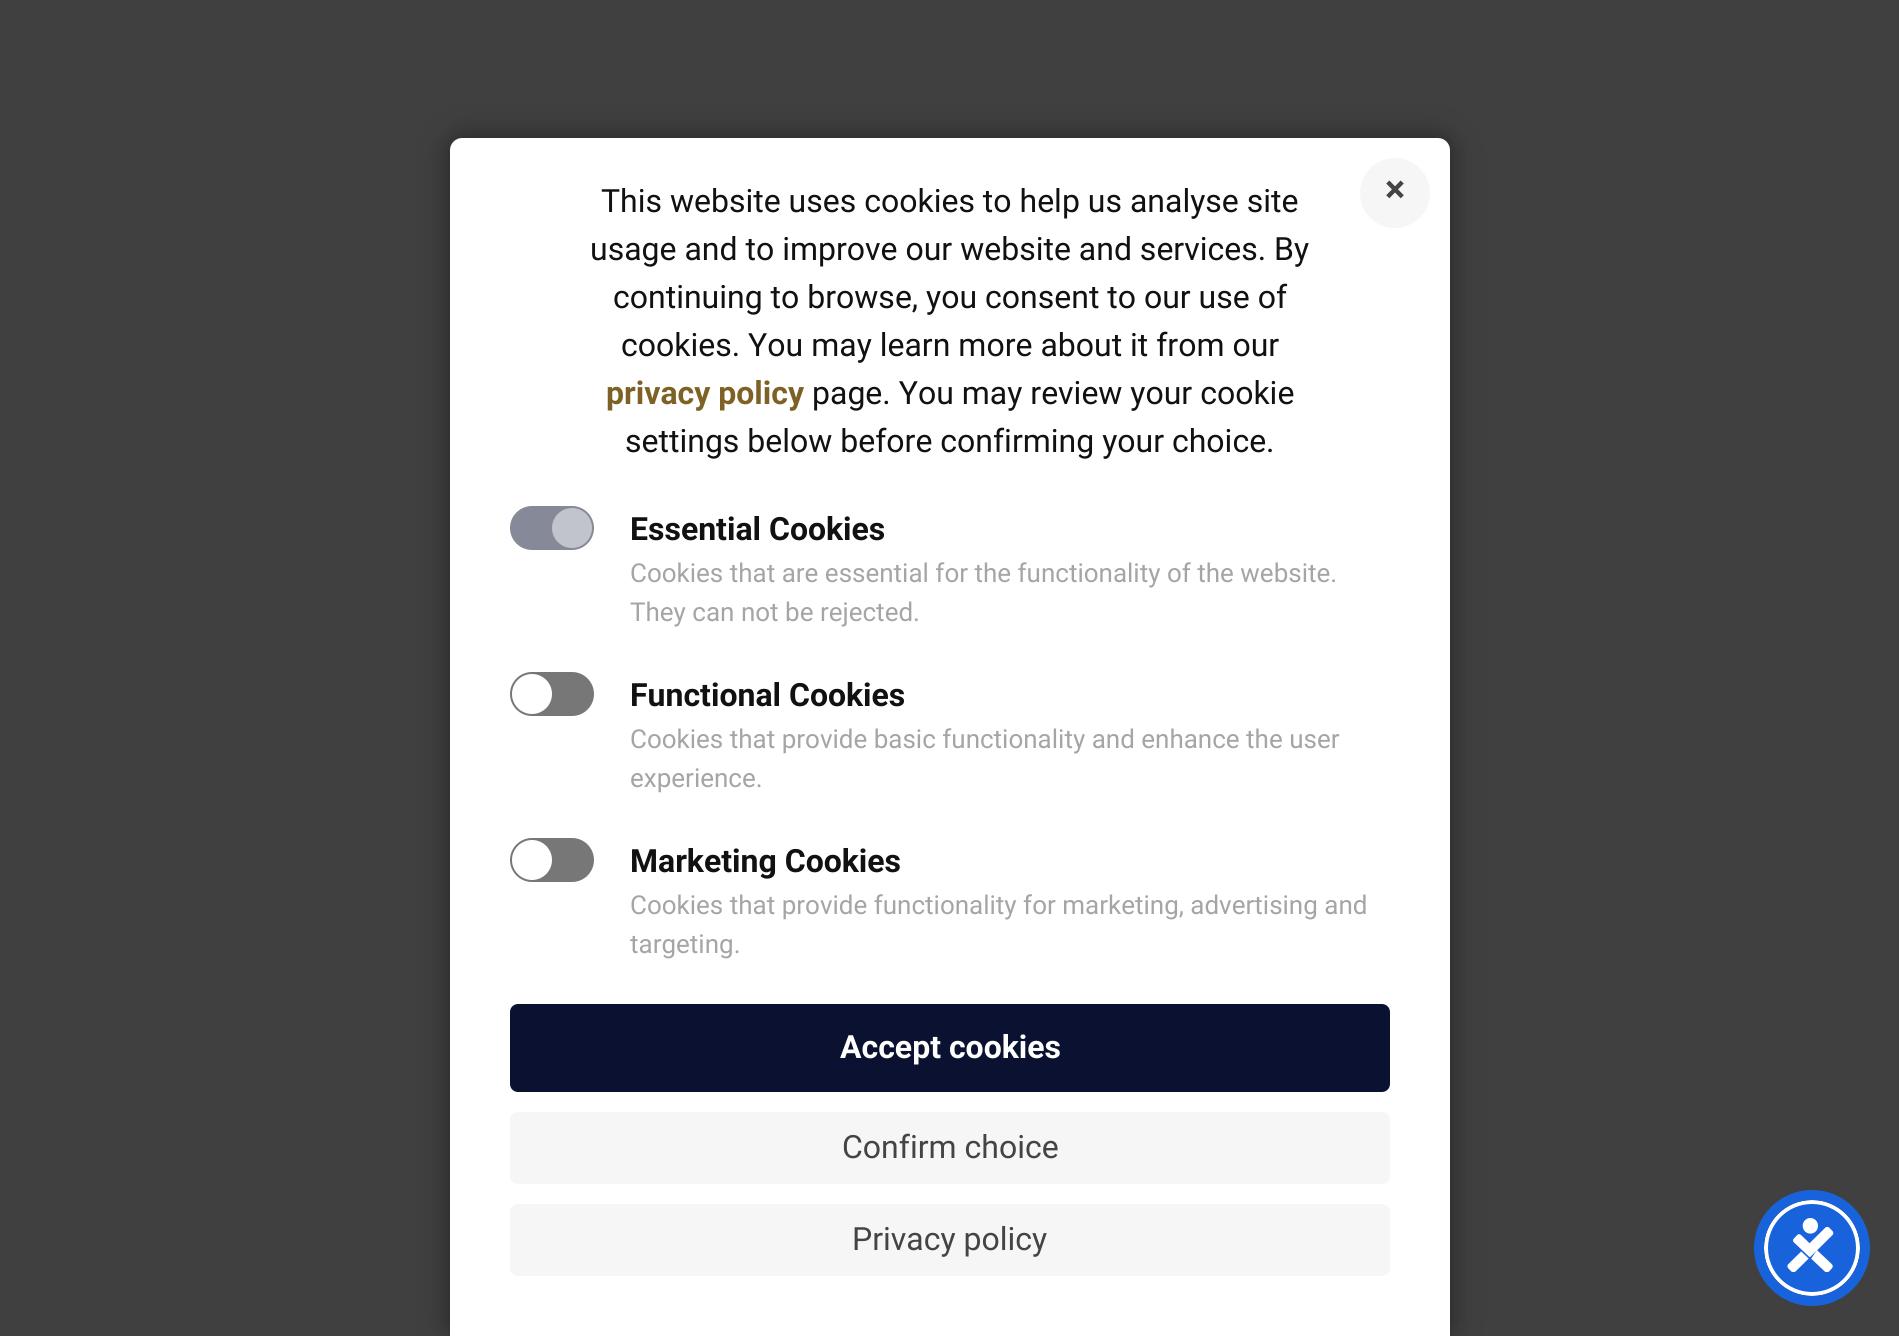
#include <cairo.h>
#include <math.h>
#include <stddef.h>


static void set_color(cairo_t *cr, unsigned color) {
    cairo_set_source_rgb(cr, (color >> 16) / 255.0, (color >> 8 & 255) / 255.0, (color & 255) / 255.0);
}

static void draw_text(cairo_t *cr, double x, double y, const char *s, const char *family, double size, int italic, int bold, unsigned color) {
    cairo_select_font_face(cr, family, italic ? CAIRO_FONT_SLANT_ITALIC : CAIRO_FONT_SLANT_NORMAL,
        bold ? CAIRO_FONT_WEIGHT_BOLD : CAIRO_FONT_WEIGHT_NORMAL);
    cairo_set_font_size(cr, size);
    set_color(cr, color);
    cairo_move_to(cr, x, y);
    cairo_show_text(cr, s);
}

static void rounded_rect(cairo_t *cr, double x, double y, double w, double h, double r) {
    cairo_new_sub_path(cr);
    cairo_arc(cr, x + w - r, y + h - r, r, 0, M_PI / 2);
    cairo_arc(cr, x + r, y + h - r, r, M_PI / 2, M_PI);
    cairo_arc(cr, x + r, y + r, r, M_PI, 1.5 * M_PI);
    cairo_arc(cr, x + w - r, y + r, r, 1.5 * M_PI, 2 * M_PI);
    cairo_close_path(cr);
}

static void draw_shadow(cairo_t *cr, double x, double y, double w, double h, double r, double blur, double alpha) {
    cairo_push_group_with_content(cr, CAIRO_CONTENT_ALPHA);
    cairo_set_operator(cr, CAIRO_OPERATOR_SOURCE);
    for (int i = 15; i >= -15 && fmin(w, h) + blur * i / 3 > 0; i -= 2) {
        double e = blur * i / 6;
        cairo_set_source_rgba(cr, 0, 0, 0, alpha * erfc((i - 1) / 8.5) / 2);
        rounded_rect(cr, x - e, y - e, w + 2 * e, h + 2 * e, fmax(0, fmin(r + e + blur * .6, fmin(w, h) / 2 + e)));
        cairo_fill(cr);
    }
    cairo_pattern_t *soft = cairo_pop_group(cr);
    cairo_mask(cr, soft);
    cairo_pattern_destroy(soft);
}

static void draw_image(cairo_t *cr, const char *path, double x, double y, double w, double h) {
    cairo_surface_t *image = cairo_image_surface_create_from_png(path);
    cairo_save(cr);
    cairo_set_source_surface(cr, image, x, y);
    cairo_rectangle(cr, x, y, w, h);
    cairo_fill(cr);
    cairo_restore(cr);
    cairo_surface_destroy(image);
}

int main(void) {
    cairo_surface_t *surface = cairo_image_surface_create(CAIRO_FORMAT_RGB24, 1899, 1336);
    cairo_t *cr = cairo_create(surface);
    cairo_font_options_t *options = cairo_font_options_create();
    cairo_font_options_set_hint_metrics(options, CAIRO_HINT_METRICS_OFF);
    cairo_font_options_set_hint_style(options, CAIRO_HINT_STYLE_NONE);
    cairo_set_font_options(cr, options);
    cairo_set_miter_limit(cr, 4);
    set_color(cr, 0x404040);
    cairo_paint(cr);
    set_color(cr, 0x000000);
    draw_shadow(cr, 450, 138, 1000, 1198, 12, 20, 0.2);
    draw_shadow(cr, 450, 138, 1000, 1198, 12, 10, 0.3);
    set_color(cr, 0xFFFFFF);
    cairo_new_path(cr);
    cairo_move_to(cr, 462, 138);
    cairo_line_to(cr, 1438, 138);
    cairo_curve_to(cr, 1444.5, 138, 1450, 143.5, 1450, 150);
    cairo_line_to(cr, 1450, 1336);
    cairo_line_to(cr, 450, 1336);
    cairo_line_to(cr, 450, 150);
    cairo_curve_to(cr, 450, 143.5, 455.5, 138, 462, 138);
    cairo_close_path(cr);
    cairo_fill(cr);
    set_color(cr, 0xF6F6F6);
    cairo_arc(cr, 1395, 193, 35, 0, 2 * M_PI);
    cairo_fill(cr);
    draw_text(cr, 1385, 202, "×", "Roboto", 38, 0, 1, 0x444444);
    set_color(cr, 0x0B1231);
    rounded_rect(cr, 510, 1004, 880, 88, 8);
    cairo_fill(cr);
    draw_text(cr, 840, 1058, "Accept cookies", "Roboto", 32, 0, 1, 0xFFFFFF);
    set_color(cr, 0xF6F6F6);
    rounded_rect(cr, 510, 1112, 880, 72, 8);
    cairo_fill(cr);
    draw_text(cr, 842, 1158, "Confirm choice", "Roboto", 32, 0, 0, 0x444444);
    set_color(cr, 0xF6F6F6);
    rounded_rect(cr, 510, 1204, 880, 72, 8);
    cairo_fill(cr);
    draw_text(cr, 852, 1250, "Privacy policy", "Roboto", 32, 0, 0, 0x444444);
    draw_text(cr, 601, 212, "This website uses cookies to help us analyse site", "Roboto", 32, 0, 0, 0x111111);
    draw_text(cr, 590, 260, "usage and to improve our website and services. By", "Roboto", 32, 0, 0, 0x111111);
    draw_text(cr, 613, 308, "continuing to browse, you consent to our use of", "Roboto", 32, 0, 0, 0x111111);
    draw_text(cr, 621, 356, "cookies. You may learn more about it from our", "Roboto", 32, 0, 0, 0x111111);
    draw_text(cr, 606, 404, "privacy policy", "Roboto", 32, 0, 1, 0x7D6125);
    draw_text(cr, 812, 404, "page. You may review your cookie", "Roboto", 32, 0, 0, 0x111111);
    draw_text(cr, 625, 452, "settings below before confirming your choice.", "Roboto", 32, 0, 0, 0x111111);
    set_color(cr, 0x858998);
    rounded_rect(cr, 510, 506, 84, 44, 22);
    cairo_fill(cr);
    set_color(cr, 0xC2C4CC);
    cairo_arc(cr, 572, 528, 20, 0, 2 * M_PI);
    cairo_fill(cr);
    draw_text(cr, 630, 540, "Essential Cookies", "Roboto", 32, 0, 1, 0x111111);
    draw_text(cr, 630, 582, "Cookies that are essential for the functionality of the website.", "Roboto", 26, 0, 0, 0xA5A5A5);
    draw_text(cr, 630, 621, "They can not be rejected.", "Roboto", 26, 0, 0, 0xA5A5A5);
    set_color(cr, 0x777777);
    rounded_rect(cr, 510, 672, 84, 44, 22);
    cairo_fill(cr);
    set_color(cr, 0xFFFFFF);
    cairo_arc(cr, 532, 694, 20, 0, 2 * M_PI);
    cairo_fill(cr);
    draw_text(cr, 630, 706, "Functional Cookies", "Roboto", 32, 0, 1, 0x111111);
    draw_text(cr, 630, 748, "Cookies that provide basic functionality and enhance the user", "Roboto", 26, 0, 0, 0xA5A5A5);
    draw_text(cr, 630, 787, "experience.", "Roboto", 26, 0, 0, 0xA5A5A5);
    set_color(cr, 0x777777);
    rounded_rect(cr, 510, 838, 84, 44, 22);
    cairo_fill(cr);
    set_color(cr, 0xFFFFFF);
    cairo_arc(cr, 532, 860, 20, 0, 2 * M_PI);
    cairo_fill(cr);
    draw_text(cr, 630, 872, "Marketing Cookies", "Roboto", 32, 0, 1, 0x111111);
    draw_text(cr, 630, 914, "Cookies that provide functionality for marketing, advertising and", "Roboto", 26, 0, 0, 0xA5A5A5);
    draw_text(cr, 630, 953, "targeting.", "Roboto", 26, 0, 0, 0xA5A5A5);
    set_color(cr, 0x5D6494);
    draw_shadow(cr, 1764, 1204, 96, 96, 48, 4, 0.2);
    set_color(cr, 0x1863DC);
    cairo_arc(cr, 1812, 1248, 46, 0, 2 * M_PI);
    cairo_fill_preserve(cr);
    set_color(cr, 0xFFFFFF);
    cairo_set_line_width(cr, 4);
    cairo_stroke(cr);
    cairo_arc(cr, 1812, 1248, 53, 0, 2 * M_PI);
    set_color(cr, 0x1863DC);
    cairo_set_line_width(cr, 10);
    cairo_stroke(cr);
    draw_image(cr, "assets/img1.png", 1787, 1218, 47, 54);
    cairo_surface_write_to_png(surface, "output.png");
    cairo_font_options_destroy(options);
    cairo_destroy(cr);
    cairo_surface_destroy(surface);
    return 0;
}
